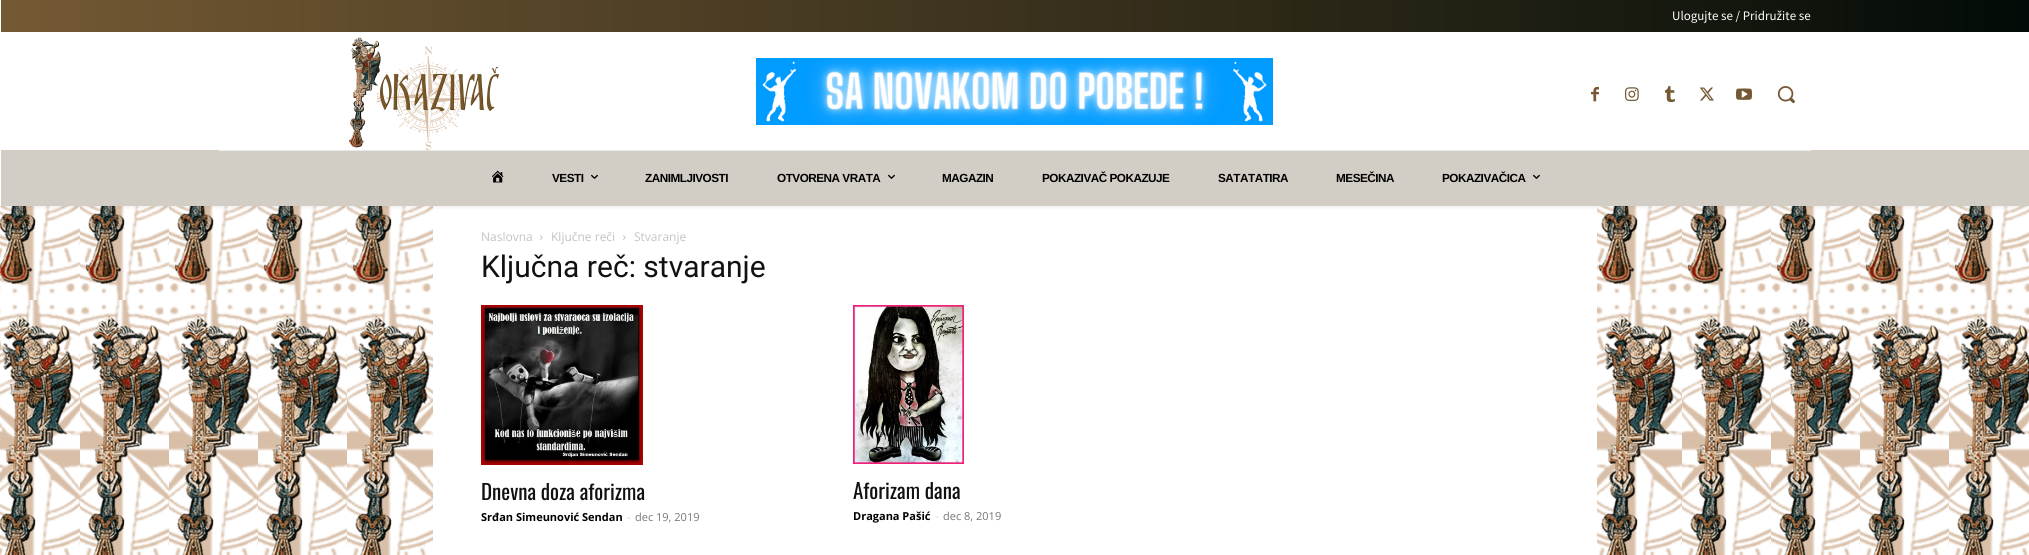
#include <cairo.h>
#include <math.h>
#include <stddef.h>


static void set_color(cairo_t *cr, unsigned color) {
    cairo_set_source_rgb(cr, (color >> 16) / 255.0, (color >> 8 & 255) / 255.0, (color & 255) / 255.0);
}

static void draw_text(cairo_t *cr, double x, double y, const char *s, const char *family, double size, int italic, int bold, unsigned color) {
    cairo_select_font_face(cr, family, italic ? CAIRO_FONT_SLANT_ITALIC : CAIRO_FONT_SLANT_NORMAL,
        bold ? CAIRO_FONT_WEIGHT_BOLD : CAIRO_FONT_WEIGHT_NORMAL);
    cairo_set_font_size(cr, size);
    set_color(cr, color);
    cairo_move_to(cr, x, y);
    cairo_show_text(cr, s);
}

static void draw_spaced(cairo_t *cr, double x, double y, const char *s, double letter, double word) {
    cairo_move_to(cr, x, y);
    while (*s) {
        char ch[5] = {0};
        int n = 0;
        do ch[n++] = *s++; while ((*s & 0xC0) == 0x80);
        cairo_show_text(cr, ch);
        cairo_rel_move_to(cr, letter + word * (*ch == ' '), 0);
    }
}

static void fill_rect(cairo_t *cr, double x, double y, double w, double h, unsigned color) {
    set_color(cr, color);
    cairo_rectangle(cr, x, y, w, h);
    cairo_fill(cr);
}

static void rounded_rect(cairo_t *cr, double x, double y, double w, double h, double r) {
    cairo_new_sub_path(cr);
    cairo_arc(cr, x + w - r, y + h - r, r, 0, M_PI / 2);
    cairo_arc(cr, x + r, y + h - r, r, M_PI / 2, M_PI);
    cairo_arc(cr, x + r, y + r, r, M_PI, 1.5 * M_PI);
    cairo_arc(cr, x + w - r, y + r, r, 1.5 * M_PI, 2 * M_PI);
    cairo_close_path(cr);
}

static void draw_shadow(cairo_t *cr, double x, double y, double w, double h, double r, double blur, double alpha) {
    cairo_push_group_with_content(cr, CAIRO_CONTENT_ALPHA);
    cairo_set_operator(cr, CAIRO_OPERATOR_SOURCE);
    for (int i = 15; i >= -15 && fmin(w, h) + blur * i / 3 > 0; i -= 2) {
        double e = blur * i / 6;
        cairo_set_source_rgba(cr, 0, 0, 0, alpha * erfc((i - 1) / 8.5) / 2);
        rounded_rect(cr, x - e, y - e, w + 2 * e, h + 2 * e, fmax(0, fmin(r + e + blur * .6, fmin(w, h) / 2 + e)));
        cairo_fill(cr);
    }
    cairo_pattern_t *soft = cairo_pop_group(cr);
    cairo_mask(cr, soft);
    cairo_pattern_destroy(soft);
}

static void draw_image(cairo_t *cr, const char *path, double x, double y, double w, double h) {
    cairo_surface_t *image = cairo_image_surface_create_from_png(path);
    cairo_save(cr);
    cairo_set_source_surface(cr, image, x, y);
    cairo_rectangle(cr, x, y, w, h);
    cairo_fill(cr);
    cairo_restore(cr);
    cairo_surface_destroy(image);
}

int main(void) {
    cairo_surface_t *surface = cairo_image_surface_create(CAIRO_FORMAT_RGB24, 2029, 555);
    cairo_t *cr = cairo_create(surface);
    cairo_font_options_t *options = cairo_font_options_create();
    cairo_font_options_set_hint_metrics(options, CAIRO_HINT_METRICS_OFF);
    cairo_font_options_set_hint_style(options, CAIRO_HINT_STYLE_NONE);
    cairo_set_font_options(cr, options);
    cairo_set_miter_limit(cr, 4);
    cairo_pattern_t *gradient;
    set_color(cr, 0xFFFFFF);
    cairo_paint(cr);
    draw_image(cr, "assets/img1.png", 0, 206, 2029, 349);
    gradient = cairo_pattern_create_linear(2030, 16, 0.5, 16);
    cairo_pattern_add_color_stop_rgba(gradient, 0, 0.008, 0.043, 0.027, 1);
    cairo_pattern_add_color_stop_rgba(gradient, 1, 0.455, 0.349, 0.204, 1);
    cairo_set_source(cr, gradient);
    cairo_pattern_destroy(gradient);
    cairo_rectangle(cr, 1, 0, 2028, 32);
    cairo_fill(cr);
    draw_text(cr, 1672, 20, "Ulogujte se / Pridružite se", "Source Sans Pro", 13, 0, 0, 0xFFFFFF);
    draw_image(cr, "assets/img2.png", 349, 37, 150, 113);
    draw_image(cr, "assets/img3.png", 756, 58, 517, 67);
    draw_image(cr, "assets/img4.png", 1591, 86, 8, 16);
    draw_image(cr, "assets/img5.png", 1625, 87, 14, 14);
    draw_image(cr, "assets/img6.png", 1665, 86, 10, 17);
    draw_image(cr, "assets/img7.png", 1699, 87, 15, 14);
    draw_image(cr, "assets/img8.png", 1736, 88, 16, 12);
    draw_image(cr, "assets/img9.png", 1777, 86, 18, 18);
    fill_rect(cr, 1, 150, 2028, 56, 0xD2CDC5);
    fill_rect(cr, 219, 150, 1592, 1, 0xEAEAEA);
    fill_rect(cr, 433, 206, 1164, 349, 0xFFFFFF);
    cairo_save(cr);
    cairo_rectangle(cr, 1, 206, 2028, 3);
    cairo_clip(cr);
    set_color(cr, 0x000000);
    draw_shadow(cr, 1, 152, 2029, 56, 0, 2, 0.06);
    cairo_restore(cr);
    draw_image(cr, "assets/img10.png", 492, 170, 12, 13);
    cairo_select_font_face(cr, "Liberation Sans", CAIRO_FONT_SLANT_NORMAL, CAIRO_FONT_WEIGHT_BOLD);
    cairo_set_font_size(cr, 11.75);
    set_color(cr, 0x000000);
    draw_spaced(cr, 552, 182, "VESTI", -0.5, 0);
    draw_image(cr, "assets/img11.png", 591, 174, 7, 5);
    draw_spaced(cr, 645, 182, "ZANIMLJIVOSTI", -0.5, 0);
    draw_spaced(cr, 777, 182, "OTVORENA VRATA", -0.5, 0);
    draw_image(cr, "assets/img11.png", 888, 174, 7, 5);
    draw_spaced(cr, 942, 182, "MAGAZIN", -0.5, 0);
    draw_spaced(cr, 1042, 182, "POKAZIVAČ POKAZUJE", -0.5, 0);
    draw_spaced(cr, 1218, 182, "SATATATIRA", -0.5, 0);
    draw_spaced(cr, 1336, 182, "MESEČINA", -0.5, 0);
    draw_spaced(cr, 1442, 182, "POKAZIVAČICA", -0.5, 0);
    draw_image(cr, "assets/img11.png", 1533, 174, 7, 5);
    draw_text(cr, 481, 241, "Naslovna", "Open Sans", 12, 0, 0, 0xC3C3C3);
    draw_image(cr, "assets/img12.png", 540, 235, 3, 5);
    draw_text(cr, 551, 241, "Ključne reči", "Open Sans", 12, 0, 0, 0xC3C3C3);
    draw_image(cr, "assets/img12.png", 623, 235, 3, 5);
    draw_text(cr, 634, 241, "Stvaranje", "Open Sans", 12, 0, 0, 0xC3C3C3);
    draw_text(cr, 481, 277, "Ključna reč: stvaranje", "Roboto", 30, 0, 0, 0x111111);
    draw_image(cr, "assets/img13.png", 481, 305, 162, 160);
    draw_text(cr, 481, 500, "Dnevna doza aforizma", "Oswald", 21, 0, 0, 0x111111);
    draw_text(cr, 481, 521, "Srđan Simeunović Sendan", "Open Sans", 11, 0, 1, 0x000000);
    draw_text(cr, 627, 521, "-", "Open Sans", 11, 0, 0, 0xCCCCCC);
    draw_text(cr, 635, 521, "dec 19, 2019", "Open Sans", 11, 0, 0, 0x767676);
    draw_image(cr, "assets/img14.png", 853, 305, 111, 159);
    draw_text(cr, 853, 499, "Aforizam dana", "Oswald", 21, 0, 0, 0x111111);
    draw_text(cr, 853, 520, "Dragana Pašić", "Open Sans", 11, 0, 1, 0x000000);
    draw_text(cr, 935, 520, "-", "Open Sans", 11, 0, 0, 0xCCCCCC);
    draw_text(cr, 943, 520, "dec 8, 2019", "Open Sans", 11, 0, 0, 0x767676);
    cairo_surface_write_to_png(surface, "output.png");
    cairo_font_options_destroy(options);
    cairo_destroy(cr);
    cairo_surface_destroy(surface);
    return 0;
}
